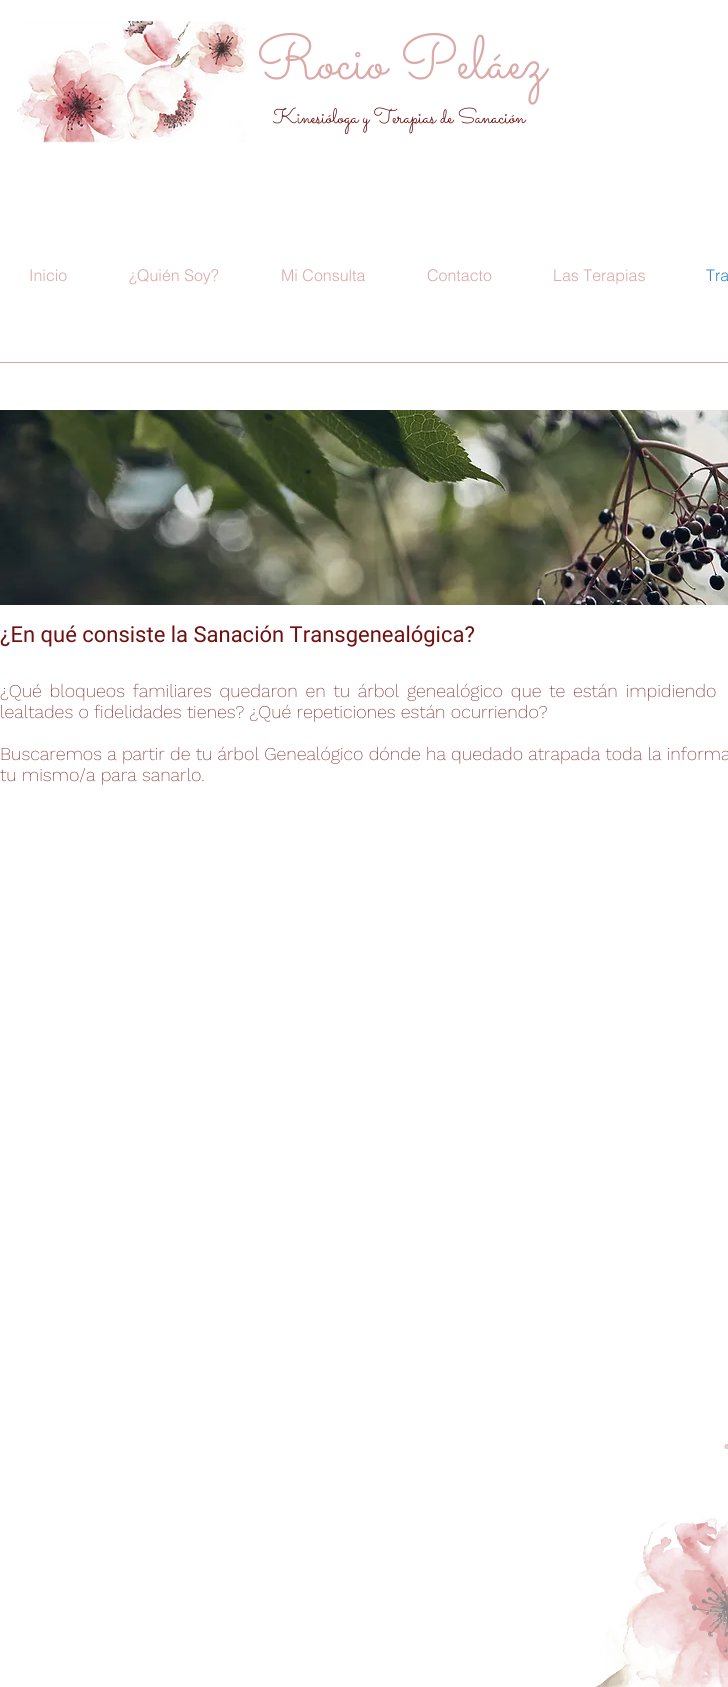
#include <cairo.h>
#include <math.h>
#include <stddef.h>


static void set_color(cairo_t *cr, unsigned color) {
    cairo_set_source_rgb(cr, (color >> 16) / 255.0, (color >> 8 & 255) / 255.0, (color & 255) / 255.0);
}

static void draw_text(cairo_t *cr, double x, double y, const char *s, const char *family, double size, int italic, int bold, unsigned color) {
    cairo_select_font_face(cr, family, italic ? CAIRO_FONT_SLANT_ITALIC : CAIRO_FONT_SLANT_NORMAL,
        bold ? CAIRO_FONT_WEIGHT_BOLD : CAIRO_FONT_WEIGHT_NORMAL);
    cairo_set_font_size(cr, size);
    set_color(cr, color);
    cairo_move_to(cr, x, y);
    cairo_show_text(cr, s);
}

static void draw_spaced(cairo_t *cr, double x, double y, const char *s, double letter, double word) {
    cairo_move_to(cr, x, y);
    while (*s) {
        char ch[5] = {0};
        int n = 0;
        do ch[n++] = *s++; while ((*s & 0xC0) == 0x80);
        cairo_show_text(cr, ch);
        cairo_rel_move_to(cr, letter + word * (*ch == ' '), 0);
    }
}

static void fill_rect(cairo_t *cr, double x, double y, double w, double h, unsigned color) {
    set_color(cr, color);
    cairo_rectangle(cr, x, y, w, h);
    cairo_fill(cr);
}

static void draw_image(cairo_t *cr, const char *path, double x, double y, double w, double h) {
    cairo_surface_t *image = cairo_image_surface_create_from_png(path);
    cairo_save(cr);
    cairo_set_source_surface(cr, image, x, y);
    cairo_rectangle(cr, x, y, w, h);
    cairo_fill(cr);
    cairo_restore(cr);
    cairo_surface_destroy(image);
}

int main(void) {
    cairo_surface_t *surface = cairo_image_surface_create(CAIRO_FORMAT_RGB24, 728, 1687);
    cairo_t *cr = cairo_create(surface);
    cairo_font_options_t *options = cairo_font_options_create();
    cairo_font_options_set_hint_metrics(options, CAIRO_HINT_METRICS_OFF);
    cairo_font_options_set_hint_style(options, CAIRO_HINT_STYLE_NONE);
    cairo_set_font_options(cr, options);
    cairo_set_miter_limit(cr, 4);
    set_color(cr, 0xFFFFFF);
    cairo_paint(cr);
    draw_image(cr, "assets/img1.png", 17, 21, 230, 122);
    draw_text(cr, 256, 78, "Rocio Peláez", "Sacramento", 61, 0, 0, 0xDBA9A7);
    draw_text(cr, 273, 123, "Kinesióloga y Terapias de Sanación", "Sacramento", 21, 0, 0, 0x701010);
    draw_text(cr, 29, 281, "Inicio", "helvetica Light", 16, 0, 0, 0xDBA9A7);
    draw_text(cr, 129, 281, "¿Quién Soy?", "helvetica Light", 16, 0, 0, 0xDBA9A7);
    draw_text(cr, 281, 281, "Mi Consulta", "helvetica Light", 16, 0, 0, 0xDBA9A7);
    draw_text(cr, 427, 281, "Contacto", "helvetica Light", 16, 0, 0, 0xDBA9A7);
    draw_text(cr, 553, 281, "Las Terapias", "helvetica Light", 16, 0, 0, 0xDBA9A7);
    draw_text(cr, 706, 281, "Tra", "helvetica Light", 16, 0, 0, 0x3588CC);
    fill_rect(cr, 0, 362, 728, 1, 0xDBA9A7);
    draw_image(cr, "assets/img2.png", 0, 410, 728, 195);
    draw_text(cr, 0, 642, "¿En qué consiste la Sanación Transgenealógica?", "Roboto", 22, 0, 0, 0x701010);
    cairo_select_font_face(cr, "Work Sans ExtraLight", CAIRO_FONT_SLANT_NORMAL, CAIRO_FONT_WEIGHT_NORMAL);
    cairo_set_font_size(cr, 18);
    draw_spaced(cr, 0, 697, "¿Qué bloqueos familiares quedaron en tu árbol genealógico que te están impidiendo", 0, 2.5);
    draw_text(cr, 0, 718, "lealtades o fidelidades tienes? ¿Qué repeticiones están ocurriendo?", "Work Sans ExtraLight", 18, 0, 0, 0x701010);
    draw_text(cr, 0, 760, "Buscaremos a partir de tu árbol Genealógico dónde ha quedado atrapada toda la informa", "Work Sans ExtraLight", 18, 0, 0, 0x701010);
    draw_text(cr, 0, 781, "tu mismo/a para sanarlo.", "Work Sans ExtraLight", 18, 0, 0, 0x701010);
    draw_image(cr, "assets/img3.png", 595, 1444, 133, 243);
    cairo_surface_write_to_png(surface, "output.png");
    cairo_font_options_destroy(options);
    cairo_destroy(cr);
    cairo_surface_destroy(surface);
    return 0;
}
